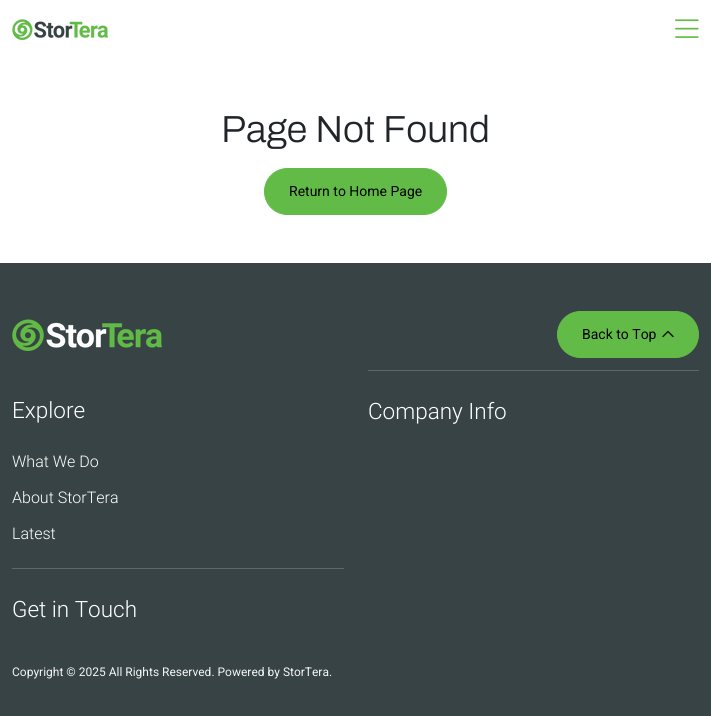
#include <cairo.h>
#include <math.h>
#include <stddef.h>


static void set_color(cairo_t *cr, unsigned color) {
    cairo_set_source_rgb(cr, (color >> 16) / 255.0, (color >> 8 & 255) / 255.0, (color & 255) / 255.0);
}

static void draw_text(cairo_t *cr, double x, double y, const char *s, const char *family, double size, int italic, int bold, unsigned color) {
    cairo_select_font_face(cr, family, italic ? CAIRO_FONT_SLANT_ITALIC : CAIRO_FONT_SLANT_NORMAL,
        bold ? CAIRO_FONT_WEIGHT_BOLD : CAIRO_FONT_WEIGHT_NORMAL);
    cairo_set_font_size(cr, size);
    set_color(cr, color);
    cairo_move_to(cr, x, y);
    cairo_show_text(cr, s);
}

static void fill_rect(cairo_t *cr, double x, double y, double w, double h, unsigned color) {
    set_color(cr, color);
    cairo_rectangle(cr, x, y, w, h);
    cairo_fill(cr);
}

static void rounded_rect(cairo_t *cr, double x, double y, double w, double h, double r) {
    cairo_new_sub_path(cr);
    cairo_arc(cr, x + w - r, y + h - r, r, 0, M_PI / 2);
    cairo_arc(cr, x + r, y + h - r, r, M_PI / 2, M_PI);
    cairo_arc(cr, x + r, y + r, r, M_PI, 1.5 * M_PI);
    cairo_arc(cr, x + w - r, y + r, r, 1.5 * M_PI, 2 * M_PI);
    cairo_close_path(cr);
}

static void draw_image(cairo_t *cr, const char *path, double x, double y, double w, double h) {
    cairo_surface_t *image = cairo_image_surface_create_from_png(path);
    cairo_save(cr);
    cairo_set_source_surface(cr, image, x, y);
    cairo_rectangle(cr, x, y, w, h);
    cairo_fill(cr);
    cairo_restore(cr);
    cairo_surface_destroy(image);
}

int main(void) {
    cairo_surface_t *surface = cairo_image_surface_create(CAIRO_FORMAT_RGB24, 711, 716);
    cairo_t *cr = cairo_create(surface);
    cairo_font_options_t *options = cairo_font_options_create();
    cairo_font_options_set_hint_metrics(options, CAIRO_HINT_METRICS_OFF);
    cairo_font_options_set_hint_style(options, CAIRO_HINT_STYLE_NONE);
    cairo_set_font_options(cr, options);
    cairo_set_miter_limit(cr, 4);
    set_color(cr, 0xFFFFFF);
    cairo_paint(cr);
    draw_image(cr, "assets/img1.png", 12, 19, 96, 21);
    draw_image(cr, "assets/img2.png", 675, 19, 24, 19);
    draw_text(cr, 221, 142, "Page Not Found", "Archivo Light", 37.75, 0, 0, 0x212529);
    set_color(cr, 0x62BB46);
    rounded_rect(cr, 264.5, 168.5, 182, 46, 23);
    cairo_fill_preserve(cr);
    cairo_set_line_width(cr, 1);
    cairo_stroke(cr);
    draw_text(cr, 289, 196, "Return to Home Page", "Roboto", 14, 0, 0, 0x000000);
    fill_rect(cr, 0, 263, 711, 453, 0x374345);
    draw_image(cr, "assets/img3.png", 12, 319, 150, 32);
    set_color(cr, 0x62BB46);
    rounded_rect(cr, 557.5, 311.5, 141, 46, 23);
    cairo_fill_preserve(cr);
    cairo_stroke(cr);
    draw_text(cr, 582, 339, "Back to Top", "Roboto", 14, 0, 0, 0x000000);
    cairo_new_path(cr);
    cairo_move_to(cr, 673, 336.5);
    cairo_line_to(cr, 668, 331.5);
    cairo_line_to(cr, 663, 336.5);
    set_color(cr, 0x1F1919);
    cairo_set_line_width(cr, 1.5);
    cairo_set_line_cap(cr, CAIRO_LINE_CAP_ROUND);
    cairo_set_line_join(cr, CAIRO_LINE_JOIN_ROUND);
    cairo_stroke(cr);
    draw_text(cr, 12, 418, "Explore", "Roboto Light", 22.5, 0, 0, 0xFFFFFF);
    draw_text(cr, 12, 467, "What We Do", "Roboto Light", 16, 0, 0, 0xFFFFFF);
    draw_text(cr, 12, 503, "About StorTera", "Roboto Light", 16, 0, 0, 0xFFFFFF);
    draw_text(cr, 12, 539, "Latest", "Roboto Light", 16, 0, 0, 0xFFFFFF);
    fill_rect(cr, 368, 370, 331, 1, 0x5F696A);
    draw_text(cr, 368, 419, "Company Info", "Roboto Light", 22.5, 0, 0, 0xFFFFFF);
    fill_rect(cr, 12, 568, 332, 1, 0x5F696A);
    draw_text(cr, 12, 617, "Get in Touch", "Roboto Light", 22.5, 0, 0, 0xFFFFFF);
    draw_text(cr, 12, 676, "Copyright © 2025 All Rights Reserved. Powered by StorTera.", "Roboto", 12, 0, 0, 0xF4F4F4);
    cairo_surface_write_to_png(surface, "output.png");
    cairo_font_options_destroy(options);
    cairo_destroy(cr);
    cairo_surface_destroy(surface);
    return 0;
}
